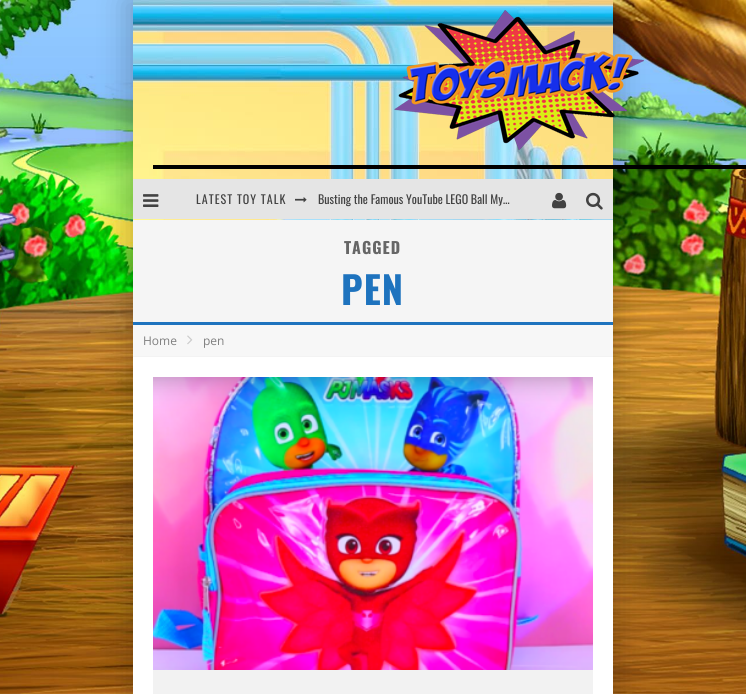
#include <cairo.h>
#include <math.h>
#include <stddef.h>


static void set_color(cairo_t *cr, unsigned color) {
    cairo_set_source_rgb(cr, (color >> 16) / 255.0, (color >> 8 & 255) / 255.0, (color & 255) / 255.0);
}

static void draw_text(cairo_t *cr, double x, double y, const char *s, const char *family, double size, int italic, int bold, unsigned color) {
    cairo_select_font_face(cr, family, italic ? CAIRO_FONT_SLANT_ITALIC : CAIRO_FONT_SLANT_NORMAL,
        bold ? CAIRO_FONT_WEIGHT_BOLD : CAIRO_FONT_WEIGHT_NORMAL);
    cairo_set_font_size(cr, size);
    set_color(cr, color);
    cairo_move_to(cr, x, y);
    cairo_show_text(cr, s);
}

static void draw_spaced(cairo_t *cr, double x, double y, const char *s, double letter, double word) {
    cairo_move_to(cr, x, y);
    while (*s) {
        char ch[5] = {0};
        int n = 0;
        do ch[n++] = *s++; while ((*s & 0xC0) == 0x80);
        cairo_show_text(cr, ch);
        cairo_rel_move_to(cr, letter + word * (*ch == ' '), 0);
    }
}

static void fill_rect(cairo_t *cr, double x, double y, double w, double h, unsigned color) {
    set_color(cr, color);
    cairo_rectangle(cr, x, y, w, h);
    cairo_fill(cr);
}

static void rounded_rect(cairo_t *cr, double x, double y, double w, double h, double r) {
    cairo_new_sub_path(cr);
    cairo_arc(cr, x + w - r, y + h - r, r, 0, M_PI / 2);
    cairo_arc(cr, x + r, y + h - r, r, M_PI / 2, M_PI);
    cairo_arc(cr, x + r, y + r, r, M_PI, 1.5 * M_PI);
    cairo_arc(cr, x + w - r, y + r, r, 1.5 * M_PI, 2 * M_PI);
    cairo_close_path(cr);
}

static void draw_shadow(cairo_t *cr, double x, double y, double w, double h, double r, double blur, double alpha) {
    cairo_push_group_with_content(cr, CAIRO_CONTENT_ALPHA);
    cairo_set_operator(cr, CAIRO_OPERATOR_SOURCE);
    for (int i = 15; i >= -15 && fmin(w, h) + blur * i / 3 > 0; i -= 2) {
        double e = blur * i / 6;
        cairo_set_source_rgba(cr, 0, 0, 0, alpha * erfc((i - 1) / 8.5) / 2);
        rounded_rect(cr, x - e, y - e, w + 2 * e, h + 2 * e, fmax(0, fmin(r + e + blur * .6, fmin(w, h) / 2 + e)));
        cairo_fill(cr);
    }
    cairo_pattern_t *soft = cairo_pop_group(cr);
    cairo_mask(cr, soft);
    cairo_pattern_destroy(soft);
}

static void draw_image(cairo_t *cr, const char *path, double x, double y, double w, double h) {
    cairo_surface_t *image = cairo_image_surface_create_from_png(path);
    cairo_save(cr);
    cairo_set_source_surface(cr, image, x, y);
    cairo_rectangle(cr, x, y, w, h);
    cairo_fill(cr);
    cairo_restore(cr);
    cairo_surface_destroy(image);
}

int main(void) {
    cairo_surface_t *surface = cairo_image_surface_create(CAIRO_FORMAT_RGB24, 746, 694);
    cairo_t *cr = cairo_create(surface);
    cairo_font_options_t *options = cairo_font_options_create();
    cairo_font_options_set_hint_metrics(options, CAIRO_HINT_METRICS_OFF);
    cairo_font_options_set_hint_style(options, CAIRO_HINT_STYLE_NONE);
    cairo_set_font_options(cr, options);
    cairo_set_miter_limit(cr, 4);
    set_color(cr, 0xFFFFFF);
    cairo_paint(cr);
    draw_image(cr, "assets/img1.png", 0, 0, 746, 694);
    set_color(cr, 0x000000);
    draw_shadow(cr, 123, 0, 480, 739, 0, 15, 0.15);
    draw_shadow(cr, 143, 0, 480, 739, 0, 15, 0.15);
    draw_image(cr, "assets/img2.png", 133, 0, 480, 220);
    draw_image(cr, "assets/img3.png", 394, 10, 250, 140);
    fill_rect(cr, 153, 165, 593, 4, 0x000000);
    fill_rect(cr, 133, 179, 480, 40, 0xE5E5E5);
    draw_image(cr, "assets/img4.png", 143, 194, 16, 13);
    cairo_select_font_face(cr, "Oswald", CAIRO_FONT_SLANT_NORMAL, CAIRO_FONT_WEIGHT_NORMAL);
    cairo_set_font_size(cr, 12);
    set_color(cr, 0x424242);
    draw_spaced(cr, 196, 204, "LATEST TOY TALK", 1, 0);
    draw_image(cr, "assets/img5.png", 295, 197, 12, 6);
    draw_text(cr, 318, 204, "Busting the Famous YouTube LEGO Ball My…", "Oswald", 12, 0, 0, 0x424242);
    draw_image(cr, "assets/img6.png", 552, 192, 15, 17);
    draw_image(cr, "assets/img7.png", 586, 192, 17, 18);
    fill_rect(cr, 133, 357, 480, 337, 0xFFFFFF);
    fill_rect(cr, 133, 220, 480, 102, 0xF5F5F5);
    fill_rect(cr, 133, 322, 480, 3, 0x1E73BE);
    cairo_select_font_face(cr, "Oswald", CAIRO_FONT_SLANT_NORMAL, CAIRO_FONT_WEIGHT_BOLD);
    cairo_set_font_size(cr, 16);
    set_color(cr, 0x666666);
    draw_spaced(cr, 344, 254, "TAGGED", 1, 0);
    cairo_set_font_size(cr, 38);
    set_color(cr, 0x1E73BE);
    draw_spaced(cr, 341, 305, "PEN", 1, 0);
    fill_rect(cr, 133, 325, 480, 31, 0xF7F7F7);
    fill_rect(cr, 133, 356, 480, 1, 0xF3F3F3);
    draw_text(cr, 143, 345, "Home", "Open Sans", 12, 0, 0, 0x808080);
    draw_image(cr, "assets/img8.png", 187, 335, 6, 10);
    draw_text(cr, 203, 345, "pen", "Open Sans", 12, 0, 0, 0x808080);
    fill_rect(cr, 153, 670, 440, 24, 0xF2F2F2);
    draw_image(cr, "assets/img9.png", 153, 377, 440, 293);
    cairo_surface_write_to_png(surface, "output.png");
    cairo_font_options_destroy(options);
    cairo_destroy(cr);
    cairo_surface_destroy(surface);
    return 0;
}
